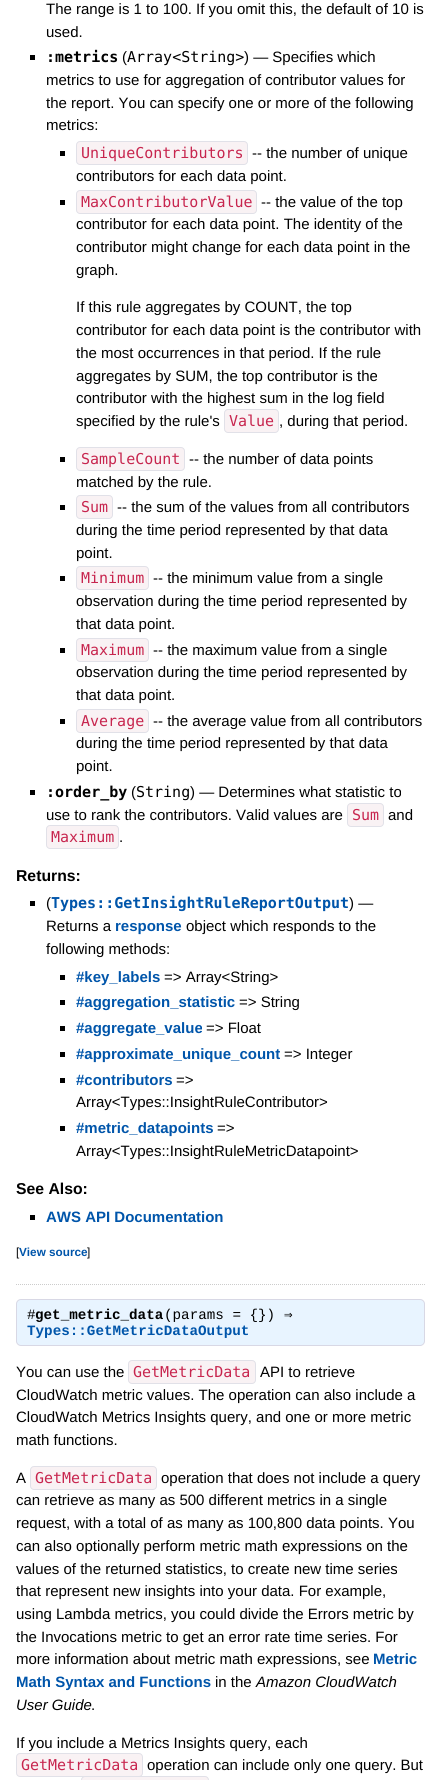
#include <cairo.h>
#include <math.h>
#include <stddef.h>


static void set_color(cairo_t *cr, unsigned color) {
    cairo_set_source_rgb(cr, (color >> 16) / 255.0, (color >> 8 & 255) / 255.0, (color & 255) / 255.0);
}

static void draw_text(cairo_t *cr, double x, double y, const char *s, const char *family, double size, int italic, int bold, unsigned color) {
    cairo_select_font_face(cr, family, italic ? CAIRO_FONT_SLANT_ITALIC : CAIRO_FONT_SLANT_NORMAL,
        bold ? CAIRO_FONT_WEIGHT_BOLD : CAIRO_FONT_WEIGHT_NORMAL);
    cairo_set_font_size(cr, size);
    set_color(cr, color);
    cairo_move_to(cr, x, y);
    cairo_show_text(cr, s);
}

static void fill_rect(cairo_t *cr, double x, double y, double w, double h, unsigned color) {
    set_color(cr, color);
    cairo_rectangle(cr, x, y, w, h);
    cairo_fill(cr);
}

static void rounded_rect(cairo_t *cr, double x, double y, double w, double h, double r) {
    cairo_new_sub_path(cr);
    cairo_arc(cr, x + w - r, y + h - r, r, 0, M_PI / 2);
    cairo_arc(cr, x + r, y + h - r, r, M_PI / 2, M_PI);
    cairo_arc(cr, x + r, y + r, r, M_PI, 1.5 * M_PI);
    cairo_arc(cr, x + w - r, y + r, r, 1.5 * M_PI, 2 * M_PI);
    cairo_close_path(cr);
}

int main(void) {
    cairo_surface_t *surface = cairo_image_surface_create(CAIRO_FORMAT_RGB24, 441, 1780);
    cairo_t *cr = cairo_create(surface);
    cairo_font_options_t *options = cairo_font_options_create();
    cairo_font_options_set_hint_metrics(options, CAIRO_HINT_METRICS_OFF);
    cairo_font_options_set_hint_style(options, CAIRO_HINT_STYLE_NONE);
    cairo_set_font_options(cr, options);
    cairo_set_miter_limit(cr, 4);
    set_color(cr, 0xFFFFFF);
    cairo_paint(cr);
    draw_text(cr, 46, 14, "The range is 1 to 100. If you omit this, the default of 10 is", "Liberation Sans", 15, 0, 0, 0x000000);
    draw_text(cr, 46, 37, "used.", "Liberation Sans", 15, 0, 0, 0x000000);
    fill_rect(cr, 30, 55, 5, 5, 0x000000);
    draw_text(cr, 46, 62, ":metrics", "DejaVu Sans Mono", 15, 0, 1, 0x000000);
    draw_text(cr, 122, 62, "(", "Liberation Sans", 15, 0, 0, 0x000000);
    draw_text(cr, 127, 62, "Array<String>", "DejaVu Sans Mono", 15, 0, 0, 0x000000);
    draw_text(cr, 244, 62, ") — Specifies which", "Liberation Sans", 15, 0, 0, 0x000000);
    draw_text(cr, 46, 85, "metrics to use for aggregation of contributor values for", "Liberation Sans", 15, 0, 0, 0x000000);
    draw_text(cr, 46, 108, "the report. You can specify one or more of the following", "Liberation Sans", 15, 0, 0, 0x000000);
    draw_text(cr, 46, 130, "metrics:", "Liberation Sans", 15, 0, 0, 0x000000);
    fill_rect(cr, 60, 151, 5, 5, 0x000000);
    set_color(cr, 0xF9F2F4);
    rounded_rect(cr, 76.5, 141.5, 171, 23, 3.5);
    cairo_fill_preserve(cr);
    set_color(cr, 0xE1E1E8);
    cairo_set_line_width(cr, 1);
    cairo_stroke(cr);
    draw_text(cr, 81, 158, "UniqueContributors", "DejaVu Sans Mono", 15, 0, 0, 0xC7254E);
    draw_text(cr, 252, 158, "-- the number of unique", "Liberation Sans", 15, 0, 0, 0x000000);
    draw_text(cr, 76, 181, "contributors for each data point.", "Liberation Sans", 15, 0, 0, 0x000000);
    fill_rect(cr, 60, 200, 5, 5, 0x000000);
    set_color(cr, 0xF9F2F4);
    rounded_rect(cr, 76.5, 190.5, 180, 23, 3.5);
    cairo_fill_preserve(cr);
    set_color(cr, 0xE1E1E8);
    cairo_stroke(cr);
    draw_text(cr, 81, 207, "MaxContributorValue", "DejaVu Sans Mono", 15, 0, 0, 0xC7254E);
    draw_text(cr, 261, 207, "-- the value of the top", "Liberation Sans", 15, 0, 0, 0x000000);
    draw_text(cr, 76, 229, "contributor for each data point. The identity of the", "Liberation Sans", 15, 0, 0, 0x000000);
    draw_text(cr, 76, 252, "contributor might change for each data point in the", "Liberation Sans", 15, 0, 0, 0x000000);
    draw_text(cr, 76, 275, "graph.", "Liberation Sans", 15, 0, 0, 0x000000);
    draw_text(cr, 76, 312, "If this rule aggregates by COUNT, the top", "Liberation Sans", 15, 0, 0, 0x000000);
    draw_text(cr, 76, 335, "contributor for each data point is the contributor with", "Liberation Sans", 15, 0, 0, 0x000000);
    draw_text(cr, 76, 358, "the most occurrences in that period. If the rule", "Liberation Sans", 15, 0, 0, 0x000000);
    draw_text(cr, 76, 381, "aggregates by SUM, the top contributor is the", "Liberation Sans", 15, 0, 0, 0x000000);
    draw_text(cr, 76, 403, "contributor with the highest sum in the log field", "Liberation Sans", 15, 0, 0, 0x000000);
    draw_text(cr, 76, 426, "specified by the rule's", "Liberation Sans", 15, 0, 0, 0x000000);
    set_color(cr, 0xF9F2F4);
    rounded_rect(cr, 224.5, 409.5, 54, 23, 3.5);
    cairo_fill_preserve(cr);
    set_color(cr, 0xE1E1E8);
    cairo_stroke(cr);
    draw_text(cr, 229, 426, "Value", "DejaVu Sans Mono", 15, 0, 0, 0xC7254E);
    draw_text(cr, 279, 426, ", during that period.", "Liberation Sans", 15, 0, 0, 0x000000);
    fill_rect(cr, 60, 457, 5, 5, 0x000000);
    set_color(cr, 0xF9F2F4);
    rounded_rect(cr, 76.5, 447.5, 108, 23, 3.5);
    cairo_fill_preserve(cr);
    set_color(cr, 0xE1E1E8);
    cairo_stroke(cr);
    draw_text(cr, 81, 464, "SampleCount", "DejaVu Sans Mono", 15, 0, 0, 0xC7254E);
    draw_text(cr, 189, 464, "-- the number of data points", "Liberation Sans", 15, 0, 0, 0x000000);
    draw_text(cr, 76, 487, "matched by the rule.", "Liberation Sans", 15, 0, 0, 0x000000);
    fill_rect(cr, 60, 505, 5, 5, 0x000000);
    set_color(cr, 0xF9F2F4);
    rounded_rect(cr, 76.5, 495.5, 36, 23, 3.5);
    cairo_fill_preserve(cr);
    set_color(cr, 0xE1E1E8);
    cairo_stroke(cr);
    draw_text(cr, 81, 512, "Sum", "DejaVu Sans Mono", 15, 0, 0, 0xC7254E);
    draw_text(cr, 117, 512, "-- the sum of the values from all contributors", "Liberation Sans", 15, 0, 0, 0x000000);
    draw_text(cr, 76, 535, "during the time period represented by that data", "Liberation Sans", 15, 0, 0, 0x000000);
    draw_text(cr, 76, 558, "point.", "Liberation Sans", 15, 0, 0, 0x000000);
    fill_rect(cr, 60, 576, 5, 5, 0x000000);
    set_color(cr, 0xF9F2F4);
    rounded_rect(cr, 76.5, 566.5, 72, 23, 3.5);
    cairo_fill_preserve(cr);
    set_color(cr, 0xE1E1E8);
    cairo_stroke(cr);
    draw_text(cr, 81, 583, "Minimum", "DejaVu Sans Mono", 15, 0, 0, 0xC7254E);
    draw_text(cr, 153, 583, "-- the minimum value from a single", "Liberation Sans", 15, 0, 0, 0x000000);
    draw_text(cr, 76, 606, "observation during the time period represented by", "Liberation Sans", 15, 0, 0, 0x000000);
    draw_text(cr, 76, 629, "that data point.", "Liberation Sans", 15, 0, 0, 0x000000);
    fill_rect(cr, 60, 648, 5, 5, 0x000000);
    set_color(cr, 0xF9F2F4);
    rounded_rect(cr, 76.5, 638.5, 72, 23, 3.5);
    cairo_fill_preserve(cr);
    set_color(cr, 0xE1E1E8);
    cairo_stroke(cr);
    draw_text(cr, 81, 655, "Maximum", "DejaVu Sans Mono", 15, 0, 0, 0xC7254E);
    draw_text(cr, 153, 655, "-- the maximum value from a single", "Liberation Sans", 15, 0, 0, 0x000000);
    draw_text(cr, 76, 677, "observation during the time period represented by", "Liberation Sans", 15, 0, 0, 0x000000);
    draw_text(cr, 76, 700, "that data point.", "Liberation Sans", 15, 0, 0, 0x000000);
    fill_rect(cr, 60, 719, 5, 5, 0x000000);
    set_color(cr, 0xF9F2F4);
    rounded_rect(cr, 76.5, 709.5, 72, 23, 3.5);
    cairo_fill_preserve(cr);
    set_color(cr, 0xE1E1E8);
    cairo_stroke(cr);
    draw_text(cr, 81, 726, "Average", "DejaVu Sans Mono", 15, 0, 0, 0xC7254E);
    draw_text(cr, 153, 726, "-- the average value from all contributors", "Liberation Sans", 15, 0, 0, 0x000000);
    draw_text(cr, 76, 748, "during the time period represented by that data", "Liberation Sans", 15, 0, 0, 0x000000);
    draw_text(cr, 76, 771, "point.", "Liberation Sans", 15, 0, 0, 0x000000);
    fill_rect(cr, 30, 790, 5, 5, 0x000000);
    draw_text(cr, 46, 797, ":order_by", "DejaVu Sans Mono", 15, 0, 1, 0x000000);
    draw_text(cr, 131, 797, "(", "Liberation Sans", 15, 0, 0, 0x000000);
    draw_text(cr, 136, 797, "String", "DejaVu Sans Mono", 15, 0, 0, 0x000000);
    draw_text(cr, 190, 797, ") — Determines what statistic to", "Liberation Sans", 15, 0, 0, 0x000000);
    draw_text(cr, 46, 820, "use to rank the contributors. Valid values are", "Liberation Sans", 15, 0, 0, 0x000000);
    set_color(cr, 0xF9F2F4);
    rounded_rect(cr, 347.5, 803.5, 36, 23, 3.5);
    cairo_fill_preserve(cr);
    set_color(cr, 0xE1E1E8);
    cairo_stroke(cr);
    draw_text(cr, 352, 820, "Sum", "DejaVu Sans Mono", 15, 0, 0, 0xC7254E);
    draw_text(cr, 388, 820, "and", "Liberation Sans", 15, 0, 0, 0x000000);
    set_color(cr, 0xF9F2F4);
    rounded_rect(cr, 46.5, 825.5, 72, 23, 3.5);
    cairo_fill_preserve(cr);
    set_color(cr, 0xE1E1E8);
    cairo_stroke(cr);
    draw_text(cr, 51, 842, "Maximum", "DejaVu Sans Mono", 15, 0, 0, 0xC7254E);
    draw_text(cr, 119, 842, ".", "Liberation Sans", 15, 0, 0, 0x000000);
    draw_text(cr, 16, 881, "Returns:", "Liberation Sans", 15.75, 0, 1, 0x000000);
    fill_rect(cr, 30, 901, 5, 5, 0x000000);
    draw_text(cr, 46, 908, "(", "Liberation Sans", 15, 0, 0, 0x000000);
    draw_text(cr, 51, 908, "Types::GetInsightRuleReportOutput", "DejaVu Sans Mono", 15, 0, 1, 0x0055AA);
    draw_text(cr, 349, 908, ") —", "Liberation Sans", 15, 0, 0, 0x000000);
    draw_text(cr, 46, 931, "Returns a", "Liberation Sans", 15, 0, 0, 0x000000);
    draw_text(cr, 115, 931, "response", "Liberation Sans", 15, 0, 1, 0x0055AA);
    draw_text(cr, 186, 931, "object which responds to the", "Liberation Sans", 15, 0, 0, 0x000000);
    draw_text(cr, 46, 954, "following methods:", "Liberation Sans", 15, 0, 0, 0x000000);
    fill_rect(cr, 60, 975, 5, 5, 0x000000);
    draw_text(cr, 76, 982, "#key_labels", "Liberation Sans", 15, 0, 1, 0x0055AA);
    draw_text(cr, 164, 982, "=> Array<String>", "Liberation Sans", 15, 0, 0, 0x000000);
    fill_rect(cr, 60, 1000, 5, 5, 0x000000);
    draw_text(cr, 76, 1007, "#aggregation_statistic", "Liberation Sans", 15, 0, 1, 0x0055AA);
    draw_text(cr, 239, 1007, "=> String", "Liberation Sans", 15, 0, 0, 0x000000);
    fill_rect(cr, 60, 1026, 5, 5, 0x000000);
    draw_text(cr, 76, 1033, "#aggregate_value", "Liberation Sans", 15, 0, 1, 0x0055AA);
    draw_text(cr, 206, 1033, "=> Float", "Liberation Sans", 15, 0, 0, 0x000000);
    fill_rect(cr, 60, 1052, 5, 5, 0x000000);
    draw_text(cr, 76, 1059, "#approximate_unique_count", "Liberation Sans", 15, 0, 1, 0x0055AA);
    draw_text(cr, 284, 1059, "=> Integer", "Liberation Sans", 15, 0, 0, 0x000000);
    fill_rect(cr, 60, 1078, 5, 5, 0x000000);
    draw_text(cr, 76, 1085, "#contributors", "Liberation Sans", 15, 0, 1, 0x0055AA);
    draw_text(cr, 176, 1085, "=>", "Liberation Sans", 15, 0, 0, 0x000000);
    draw_text(cr, 76, 1107, "Array<Types::InsightRuleContributor>", "Liberation Sans", 15, 0, 0, 0x000000);
    fill_rect(cr, 60, 1126, 5, 5, 0x000000);
    draw_text(cr, 76, 1133, "#metric_datapoints", "Liberation Sans", 15, 0, 1, 0x0055AA);
    draw_text(cr, 217, 1133, "=>", "Liberation Sans", 15, 0, 0, 0x000000);
    draw_text(cr, 76, 1156, "Array<Types::InsightRuleMetricDatapoint>", "Liberation Sans", 15, 0, 0, 0x000000);
    draw_text(cr, 16, 1194, "See Also:", "Liberation Sans", 15.75, 0, 1, 0x000000);
    fill_rect(cr, 30, 1215, 5, 5, 0x000000);
    draw_text(cr, 46, 1222, "AWS API Documentation", "Liberation Sans", 15, 0, 1, 0x0055AA);
    draw_text(cr, 16, 1256, "[", "Liberation Sans", 11.75, 0, 0, 0x000000);
    draw_text(cr, 19, 1256, "View source", "Liberation Sans", 11.75, 0, 1, 0x0055AA);
    draw_text(cr, 87, 1256, "]", "Liberation Sans", 11.75, 0, 0, 0x000000);
    cairo_new_path(cr);
    cairo_move_to(cr, 16, 1284.5);
    cairo_line_to(cr, 425, 1284.5);
    set_color(cr, 0xCCCCCC);
    cairo_set_dash(cr, (double[]){1, 1}, 2, 0);
    cairo_stroke(cr);
    set_color(cr, 0xE8F4FF);
    rounded_rect(cr, 16.5, 1299.5, 408, 46, 4.5);
    cairo_fill_preserve(cr);
    set_color(cr, 0xD8D8E5);
    cairo_set_dash(cr, NULL, 0, 0);
    cairo_stroke(cr);
    draw_text(cr, 27, 1319, "#", "Liberation Mono", 14.25, 0, 0, 0x000000);
    draw_text(cr, 35, 1319, "get_metric_data", "Liberation Mono", 14.25, 0, 1, 0x000000);
    draw_text(cr, 164, 1319, "(params = {})", "Liberation Mono", 14.25, 0, 0, 0x000000);
    draw_text(cr, 284, 1319, "⇒", "DejaVu Sans Mono", 14.25, 0, 0, 0x000000);
    draw_text(cr, 27, 1335, "Types::GetMetricDataOutput", "Liberation Mono", 14.25, 0, 1, 0x0055AA);
    draw_text(cr, 16, 1377, "You can use the", "Liberation Sans", 15, 0, 0, 0x000000);
    set_color(cr, 0xF9F2F4);
    rounded_rect(cr, 128.5, 1360.5, 127, 23, 3.5);
    cairo_fill_preserve(cr);
    set_color(cr, 0xE1E1E8);
    cairo_stroke(cr);
    draw_text(cr, 133, 1377, "GetMetricData", "DejaVu Sans Mono", 15, 0, 0, 0xC7254E);
    draw_text(cr, 260, 1377, "API to retrieve", "Liberation Sans", 15, 0, 0, 0x000000);
    draw_text(cr, 16, 1400, "CloudWatch metric values. The operation can also include a", "Liberation Sans", 15, 0, 0, 0x000000);
    draw_text(cr, 16, 1422, "CloudWatch Metrics Insights query, and one or more metric", "Liberation Sans", 15, 0, 0, 0x000000);
    draw_text(cr, 16, 1445, "math functions.", "Liberation Sans", 15, 0, 0, 0x000000);
    draw_text(cr, 16, 1483, "A", "Liberation Sans", 15, 0, 0, 0x000000);
    set_color(cr, 0xF9F2F4);
    rounded_rect(cr, 30.5, 1466.5, 126, 23, 3.5);
    cairo_fill_preserve(cr);
    set_color(cr, 0xE1E1E8);
    cairo_stroke(cr);
    draw_text(cr, 35, 1483, "GetMetricData", "DejaVu Sans Mono", 15, 0, 0, 0xC7254E);
    draw_text(cr, 161, 1483, "operation that does not include a query", "Liberation Sans", 15, 0, 0, 0x000000);
    draw_text(cr, 16, 1505, "can retrieve as many as 500 different metrics in a single", "Liberation Sans", 15, 0, 0, 0x000000);
    draw_text(cr, 16, 1528, "request, with a total of as many as 100,800 data points. You", "Liberation Sans", 15, 0, 0, 0x000000);
    draw_text(cr, 16, 1551, "can also optionally perform metric math expressions on the", "Liberation Sans", 15, 0, 0, 0x000000);
    draw_text(cr, 16, 1574, "values of the returned statistics, to create new time series", "Liberation Sans", 15, 0, 0, 0x000000);
    draw_text(cr, 16, 1596, "that represent new insights into your data. For example,", "Liberation Sans", 15, 0, 0, 0x000000);
    draw_text(cr, 16, 1619, "using Lambda metrics, you could divide the Errors metric by", "Liberation Sans", 15, 0, 0, 0x000000);
    draw_text(cr, 16, 1642, "the Invocations metric to get an error rate time series. For", "Liberation Sans", 15, 0, 0, 0x000000);
    draw_text(cr, 16, 1664, "more information about metric math expressions, see", "Liberation Sans", 15, 0, 0, 0x000000);
    draw_text(cr, 373, 1664, "Metric", "Liberation Sans", 15, 0, 1, 0x0055AA);
    draw_text(cr, 16, 1687, "Math Syntax and Functions", "Liberation Sans", 15, 0, 1, 0x0055AA);
    draw_text(cr, 215, 1687, "in the", "Liberation Sans", 15, 0, 0, 0x000000);
    draw_text(cr, 256, 1687, "Amazon CloudWatch", "Liberation Sans", 15, 1, 0, 0x000000);
    draw_text(cr, 16, 1710, "User Guide", "Liberation Sans", 15, 1, 0, 0x000000);
    draw_text(cr, 91, 1710, ".", "Liberation Sans", 15, 0, 0, 0x000000);
    draw_text(cr, 16, 1748, "If you include a Metrics Insights query, each", "Liberation Sans", 15, 0, 0, 0x000000);
    set_color(cr, 0xF9F2F4);
    rounded_rect(cr, 16.5, 1753.5, 126, 23, 3.5);
    cairo_fill_preserve(cr);
    set_color(cr, 0xE1E1E8);
    cairo_stroke(cr);
    draw_text(cr, 21, 1770, "GetMetricData", "DejaVu Sans Mono", 15, 0, 0, 0xC7254E);
    draw_text(cr, 147, 1770, "operation can include only one query. But", "Liberation Sans", 15, 0, 0, 0x000000);
    set_color(cr, 0xF9F2F4);
    rounded_rect(cr, 81.5, 1776.5, 127, 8, 3.5);
    cairo_fill_preserve(cr);
    set_color(cr, 0xE1E1E8);
    cairo_stroke(cr);
    cairo_surface_write_to_png(surface, "output.png");
    cairo_font_options_destroy(options);
    cairo_destroy(cr);
    cairo_surface_destroy(surface);
    return 0;
}
